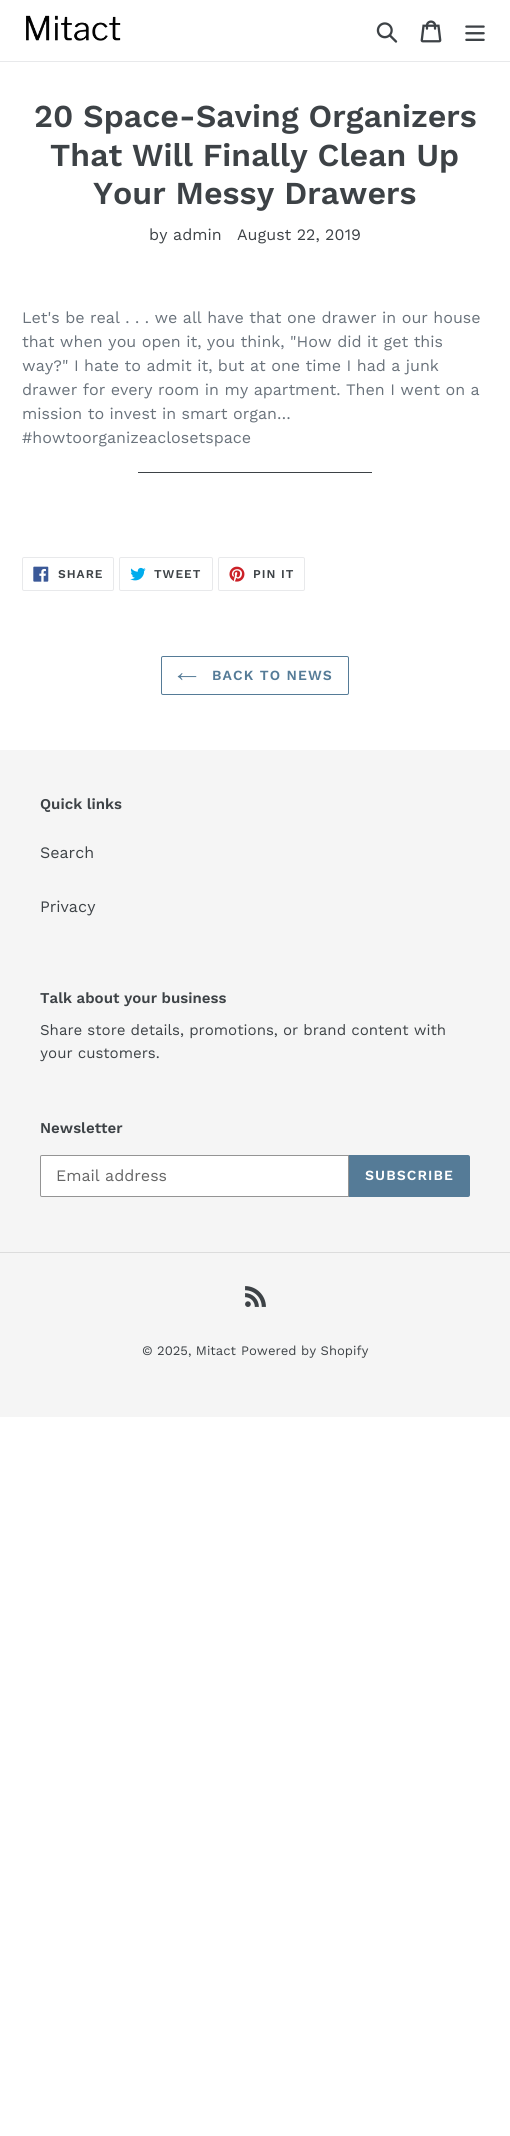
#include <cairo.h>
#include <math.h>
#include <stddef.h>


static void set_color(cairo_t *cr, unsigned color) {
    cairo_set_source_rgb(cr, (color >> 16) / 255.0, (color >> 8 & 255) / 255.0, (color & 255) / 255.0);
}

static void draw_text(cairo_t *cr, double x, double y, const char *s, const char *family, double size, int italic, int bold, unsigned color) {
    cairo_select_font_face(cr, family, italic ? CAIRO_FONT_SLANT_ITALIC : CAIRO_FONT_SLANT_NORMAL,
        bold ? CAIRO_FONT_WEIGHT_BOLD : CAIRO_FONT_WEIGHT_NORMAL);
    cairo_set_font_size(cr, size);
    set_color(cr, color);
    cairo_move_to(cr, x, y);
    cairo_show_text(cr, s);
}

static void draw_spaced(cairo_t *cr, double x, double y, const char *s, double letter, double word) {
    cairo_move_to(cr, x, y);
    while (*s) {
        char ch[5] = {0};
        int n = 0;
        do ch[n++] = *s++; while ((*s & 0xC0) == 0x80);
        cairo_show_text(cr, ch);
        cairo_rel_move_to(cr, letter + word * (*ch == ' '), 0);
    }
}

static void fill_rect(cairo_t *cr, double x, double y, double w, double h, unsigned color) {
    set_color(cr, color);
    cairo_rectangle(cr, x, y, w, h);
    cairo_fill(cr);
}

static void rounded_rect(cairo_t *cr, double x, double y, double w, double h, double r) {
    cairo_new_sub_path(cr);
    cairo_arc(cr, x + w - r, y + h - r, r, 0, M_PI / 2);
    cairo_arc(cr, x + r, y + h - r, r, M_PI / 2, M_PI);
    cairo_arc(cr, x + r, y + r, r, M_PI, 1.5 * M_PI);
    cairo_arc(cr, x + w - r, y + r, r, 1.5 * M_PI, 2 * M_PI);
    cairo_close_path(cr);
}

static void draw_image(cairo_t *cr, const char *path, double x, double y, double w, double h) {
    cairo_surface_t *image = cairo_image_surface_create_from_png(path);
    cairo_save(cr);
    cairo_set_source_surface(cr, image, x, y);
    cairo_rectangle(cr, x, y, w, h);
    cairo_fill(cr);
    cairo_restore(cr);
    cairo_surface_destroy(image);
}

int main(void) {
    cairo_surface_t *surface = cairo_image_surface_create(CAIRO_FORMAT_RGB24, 510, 2136);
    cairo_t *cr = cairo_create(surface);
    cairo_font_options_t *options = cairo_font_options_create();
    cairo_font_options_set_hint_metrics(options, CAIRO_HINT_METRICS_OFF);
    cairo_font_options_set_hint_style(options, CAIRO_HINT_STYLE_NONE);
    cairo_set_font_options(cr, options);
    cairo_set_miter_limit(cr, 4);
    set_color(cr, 0xFFFFFF);
    cairo_paint(cr);
    fill_rect(cr, 0, 61, 510, 1, 0xE8E9EB);
    draw_image(cr, "assets/img1.png", 26, 15, 95, 26);
    draw_image(cr, "assets/img2.png", 376, 22, 22, 21);
    draw_image(cr, "assets/img3.png", 420, 20, 22, 23);
    draw_image(cr, "assets/img4.png", 465, 25, 20, 16);
    draw_text(cr, 34, 127, "20 Space-Saving Organizers", "Work Sans SemiBold", 32, 0, 0, 0x3D4246);
    draw_text(cr, 50, 166, "That Will Finally Clean Up", "Work Sans SemiBold", 32, 0, 0, 0x3D4246);
    draw_text(cr, 93, 204, "Your Messy Drawers", "Work Sans SemiBold", 32, 0, 0, 0x3D4246);
    draw_text(cr, 149, 240, "by admin", "Work Sans", 16, 0, 0, 0x3D4246);
    draw_text(cr, 237, 240, "August 22, 2019", "Work Sans", 16, 0, 0, 0x3D4246);
    draw_text(cr, 22, 323, "Let's be real . . . we all have that one drawer in our house", "Work Sans", 16, 0, 0, 0x69727B);
    draw_text(cr, 22, 347, "that when you open it, you think, \"How did it get this", "Work Sans", 16, 0, 0, 0x69727B);
    draw_text(cr, 22, 371, "way?\" I hate to admit it, but at one time I had a junk", "Work Sans", 16, 0, 0, 0x69727B);
    draw_text(cr, 22, 395, "drawer for every room in my apartment. Then I went on a", "Work Sans", 16, 0, 0, 0x69727B);
    draw_text(cr, 22, 419, "mission to invest in smart organ…", "Work Sans", 16, 0, 0, 0x69727B);
    draw_text(cr, 22, 443, "#howtoorganizeaclosetspace", "Work Sans", 16, 0, 0, 0x69727B);
    fill_rect(cr, 138, 472, 234, 1, 0x3D4246);
    rounded_rect(cr, 22.5, 557.5, 91, 33, 1.5);
    set_color(cr, 0xE8E9EB);
    cairo_set_line_width(cr, 1);
    cairo_stroke(cr);
    draw_image(cr, "assets/img5.png", 33, 566, 16, 16);
    cairo_select_font_face(cr, "Work Sans SemiBold", CAIRO_FONT_SLANT_NORMAL, CAIRO_FONT_WEIGHT_NORMAL);
    cairo_set_font_size(cr, 12);
    set_color(cr, 0x3D4246);
    draw_spaced(cr, 58, 578, "SHARE", 1, 0);
    rounded_rect(cr, 119.5, 557.5, 93, 33, 1.5);
    set_color(cr, 0xE8E9EB);
    cairo_stroke(cr);
    draw_image(cr, "assets/img6.png", 130, 567, 16, 14);
    set_color(cr, 0x3D4246);
    draw_spaced(cr, 154, 578, "TWEET", 1, 0);
    rounded_rect(cr, 218.5, 557.5, 86, 33, 1.5);
    set_color(cr, 0xE8E9EB);
    cairo_stroke(cr);
    draw_image(cr, "assets/img7.png", 229, 566, 16, 16);
    set_color(cr, 0x3D4246);
    draw_spaced(cr, 253, 578, "PIN IT", 1, 0);
    rounded_rect(cr, 161.5, 656.5, 187, 38, 1.5);
    set_color(cr, 0x557B97);
    cairo_stroke(cr);
    draw_image(cr, "assets/img8.png", 177, 673, 20, 8);
    cairo_set_font_size(cr, 14);
    draw_spaced(cr, 212, 680, "BACK TO NEWS", 1.1, 0);
    fill_rect(cr, 0, 750, 510, 667, 0xF5F5F5);
    draw_text(cr, 40, 809, "Quick links", "Work Sans SemiBold", 15, 0, 0, 0x3D4246);
    draw_text(cr, 40, 858, "Search", "Work Sans", 16, 0, 0, 0x3D4246);
    draw_text(cr, 40, 912, "Privacy", "Work Sans", 16, 0, 0, 0x3D4246);
    draw_text(cr, 40, 1003, "Talk about your business", "Work Sans SemiBold", 15, 0, 0, 0x3D4246);
    draw_text(cr, 40, 1035, "Share store details, promotions, or brand content with", "Work Sans", 15, 0, 0, 0x3D4246);
    draw_text(cr, 40, 1058, "your customers.", "Work Sans", 15, 0, 0, 0x3D4246);
    draw_text(cr, 40, 1133, "Newsletter", "Work Sans SemiBold", 15, 0, 0, 0x3D4246);
    set_color(cr, 0xFFFFFF);
    cairo_new_path(cr);
    cairo_move_to(cr, 42, 1155.5);
    cairo_line_to(cr, 348.5, 1155.5);
    cairo_line_to(cr, 348.5, 1196.5);
    cairo_line_to(cr, 42, 1196.5);
    cairo_curve_to(cr, 41, 1196.5, 40.5, 1196, 40.5, 1195);
    cairo_line_to(cr, 40.5, 1157);
    cairo_curve_to(cr, 40.5, 1156, 41, 1155.5, 42, 1155.5);
    cairo_close_path(cr);
    cairo_fill_preserve(cr);
    set_color(cr, 0x949494);
    cairo_stroke(cr);
    draw_text(cr, 56, 1181, "Email address", "Work Sans", 16, 0, 0, 0x666666);
    set_color(cr, 0x557B97);
    cairo_new_path(cr);
    cairo_move_to(cr, 349, 1155);
    cairo_line_to(cr, 468, 1155);
    cairo_curve_to(cr, 469, 1155, 470, 1156, 470, 1157);
    cairo_line_to(cr, 470, 1195);
    cairo_curve_to(cr, 470, 1196, 469, 1197, 468, 1197);
    cairo_line_to(cr, 349, 1197);
    cairo_close_path(cr);
    cairo_fill(cr);
    cairo_select_font_face(cr, "Work Sans SemiBold", CAIRO_FONT_SLANT_NORMAL, CAIRO_FONT_WEIGHT_NORMAL);
    cairo_set_font_size(cr, 14);
    set_color(cr, 0xFFFFFF);
    draw_spaced(cr, 365, 1180, "SUBSCRIBE", 1.1, 0);
    fill_rect(cr, 0, 1252, 510, 1, 0xDCDCDC);
    draw_image(cr, "assets/img9.png", 245, 1286, 21, 21);
    draw_text(cr, 142, 1355, "© 2025, Mitact", "Work Sans", 13, 0, 0, 0x3D4246);
    draw_text(cr, 241, 1355, "Powered by Shopify", "Work Sans", 13, 0, 0, 0x3D4246);
    cairo_surface_write_to_png(surface, "output.png");
    cairo_font_options_destroy(options);
    cairo_destroy(cr);
    cairo_surface_destroy(surface);
    return 0;
}
